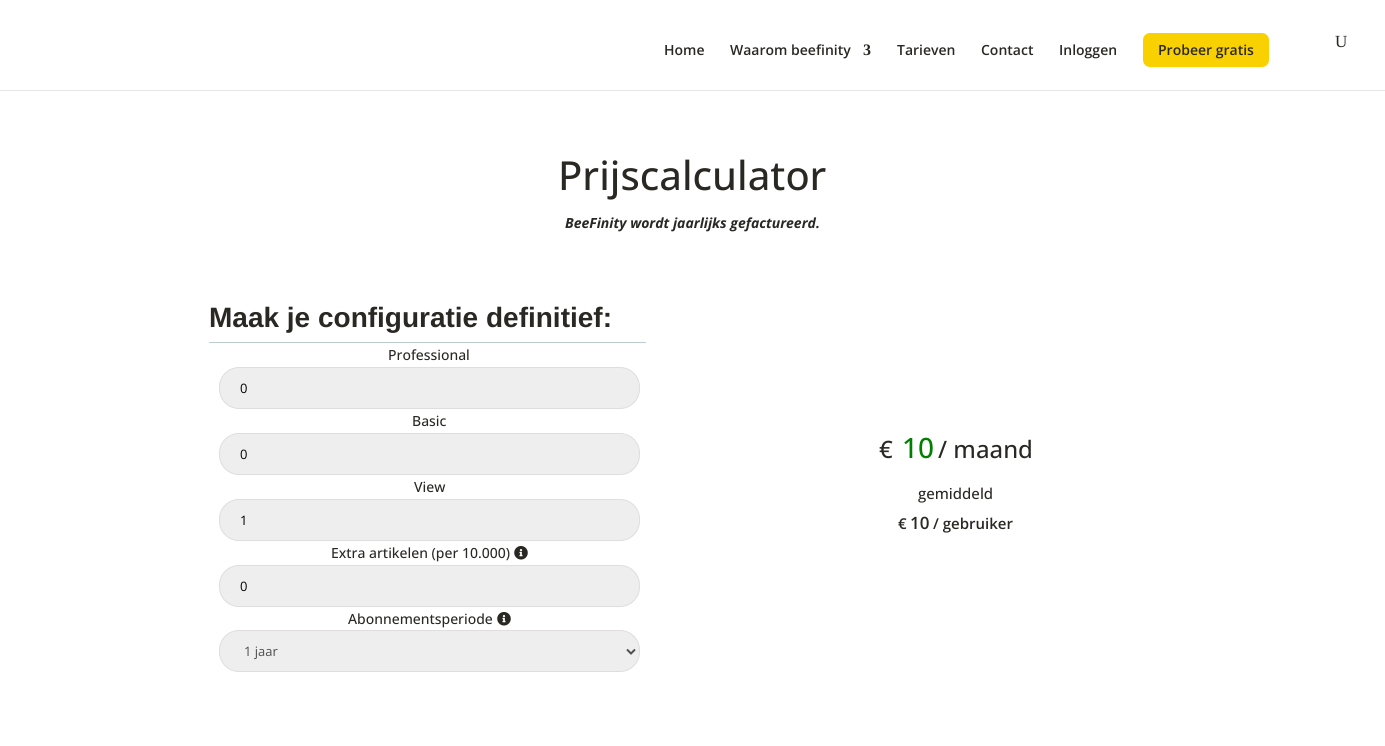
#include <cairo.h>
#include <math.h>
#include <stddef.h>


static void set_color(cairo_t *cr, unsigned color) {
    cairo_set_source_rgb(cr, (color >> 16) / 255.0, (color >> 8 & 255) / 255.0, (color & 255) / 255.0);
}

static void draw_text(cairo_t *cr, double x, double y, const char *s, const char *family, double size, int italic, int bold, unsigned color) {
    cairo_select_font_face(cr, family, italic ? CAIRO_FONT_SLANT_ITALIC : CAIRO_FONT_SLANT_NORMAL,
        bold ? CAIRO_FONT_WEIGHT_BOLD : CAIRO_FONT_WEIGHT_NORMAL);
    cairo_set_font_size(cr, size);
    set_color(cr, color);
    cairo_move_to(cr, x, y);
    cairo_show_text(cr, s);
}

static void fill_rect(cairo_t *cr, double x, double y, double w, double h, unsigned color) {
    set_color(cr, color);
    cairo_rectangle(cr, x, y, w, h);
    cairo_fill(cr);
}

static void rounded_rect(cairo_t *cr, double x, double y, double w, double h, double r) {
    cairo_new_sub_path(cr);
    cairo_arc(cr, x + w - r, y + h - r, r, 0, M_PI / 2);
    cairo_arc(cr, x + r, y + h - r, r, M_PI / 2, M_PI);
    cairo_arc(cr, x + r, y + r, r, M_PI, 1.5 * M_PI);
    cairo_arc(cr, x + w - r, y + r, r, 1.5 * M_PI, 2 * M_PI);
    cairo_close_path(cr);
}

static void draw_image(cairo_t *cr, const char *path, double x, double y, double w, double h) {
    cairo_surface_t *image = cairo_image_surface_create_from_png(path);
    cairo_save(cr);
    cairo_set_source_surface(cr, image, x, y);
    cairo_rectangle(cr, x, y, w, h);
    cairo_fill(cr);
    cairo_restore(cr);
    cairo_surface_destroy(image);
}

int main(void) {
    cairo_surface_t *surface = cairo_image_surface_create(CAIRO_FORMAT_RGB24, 1385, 746);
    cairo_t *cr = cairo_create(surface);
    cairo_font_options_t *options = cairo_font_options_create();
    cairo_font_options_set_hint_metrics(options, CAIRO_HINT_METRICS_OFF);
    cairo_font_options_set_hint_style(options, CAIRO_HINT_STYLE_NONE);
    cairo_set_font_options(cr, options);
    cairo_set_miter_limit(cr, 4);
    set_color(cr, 0xFFFFFF);
    cairo_paint(cr);
    fill_rect(cr, 0, 90, 1385, 1, 0xE6E6E6);
    draw_text(cr, 1335, 47, "U", "Liberation Serif", 17, 0, 0, 0x292823);
    draw_text(cr, 664, 55, "Home", "Open Sans SemiBold", 14, 0, 0, 0x292823);
    draw_text(cr, 730, 55, "Waarom beefinity", "Open Sans SemiBold", 14, 0, 0, 0x292823);
    draw_text(cr, 863, 55, "3", "Liberation Serif", 16, 0, 1, 0x292823);
    draw_text(cr, 897, 55, "Tarieven", "Open Sans SemiBold", 14, 0, 0, 0x292823);
    draw_text(cr, 981, 55, "Contact", "Open Sans SemiBold", 14, 0, 0, 0x292823);
    draw_text(cr, 1059, 55, "Inloggen", "Open Sans SemiBold", 14, 0, 0, 0x292823);
    set_color(cr, 0xFAD100);
    rounded_rect(cr, 1143, 33, 126, 34, 7);
    cairo_fill(cr);
    draw_text(cr, 1158, 55, "Probeer gratis", "Open Sans SemiBold", 14, 0, 0, 0x292823);
    draw_text(cr, 558, 190, "Prijscalculator", "Open Sans Medium", 40, 0, 0, 0x292823);
    draw_text(cr, 565, 228, "BeeFinity wordt jaarlijks gefactureerd.", "Open Sans", 14, 1, 1, 0x292823);
    fill_rect(cr, 209, 342, 437, 1, 0xBCCDCD);
    draw_text(cr, 209, 327, "Maak je configuratie definitief:", "Liberation Sans", 28, 0, 1, 0x292823);
    draw_text(cr, 388, 360, "Professional", "Open Sans Medium", 14, 0, 0, 0x292823);
    set_color(cr, 0xEEEEEE);
    rounded_rect(cr, 219.5, 367.5, 420, 41, 19.5);
    cairo_fill_preserve(cr);
    set_color(cr, 0xDFDDDD);
    cairo_set_line_width(cr, 1);
    cairo_stroke(cr);
    draw_text(cr, 240, 393, "0", "Open Sans", 13, 0, 0, 0x000000);
    draw_text(cr, 412, 426, "Basic", "Open Sans Medium", 14, 0, 0, 0x292823);
    set_color(cr, 0xEEEEEE);
    rounded_rect(cr, 219.5, 433.5, 420, 41, 19.5);
    cairo_fill_preserve(cr);
    set_color(cr, 0xDFDDDD);
    cairo_stroke(cr);
    draw_text(cr, 240, 459, "0", "Open Sans", 13, 0, 0, 0x000000);
    draw_text(cr, 414, 492, "View", "Open Sans Medium", 14, 0, 0, 0x292823);
    set_color(cr, 0xEEEEEE);
    rounded_rect(cr, 219.5, 499.5, 420, 41, 19.5);
    cairo_fill_preserve(cr);
    set_color(cr, 0xDFDDDD);
    cairo_stroke(cr);
    draw_text(cr, 240, 525, "1", "Open Sans", 13, 0, 0, 0x000000);
    draw_text(cr, 331, 558, "Extra artikelen (per 10.000)", "Open Sans Medium", 14, 0, 0, 0x292823);
    draw_image(cr, "assets/img1.png", 514, 546, 14, 14);
    set_color(cr, 0xEEEEEE);
    rounded_rect(cr, 219.5, 565.5, 420, 41, 19.5);
    cairo_fill_preserve(cr);
    set_color(cr, 0xDFDDDD);
    cairo_stroke(cr);
    draw_text(cr, 240, 591, "0", "Open Sans", 13, 0, 0, 0x000000);
    draw_text(cr, 348, 624, "Abonnementsperiode", "Open Sans Medium", 14, 0, 0, 0x292823);
    draw_image(cr, "assets/img1.png", 497, 612, 14, 14);
    set_color(cr, 0xEEEEEE);
    rounded_rect(cr, 219.5, 630.5, 420, 41, 19.5);
    cairo_fill_preserve(cr);
    set_color(cr, 0xDFDDDD);
    cairo_stroke(cr);
    cairo_new_path(cr);
    cairo_move_to(cr, 627, 649.5);
    cairo_line_to(cr, 631, 653.5);
    cairo_line_to(cr, 635, 649.5);
    set_color(cr, 0x4E4E4E);
    cairo_set_line_width(cr, 2);
    cairo_stroke(cr);
    draw_text(cr, 244, 656, "1 jaar", "Open Sans", 13, 0, 0, 0x4E4E4E);
    draw_text(cr, 879, 458, "€", "Open Sans Medium", 24, 0, 0, 0x292823);
    draw_text(cr, 902, 458, "10", "Open Sans Medium", 28, 0, 0, 0x008000);
    draw_text(cr, 938, 458, "/ maand", "Open Sans Medium", 24, 0, 0, 0x292823);
    draw_text(cr, 918, 499, "gemiddeld", "Open Sans Medium", 15, 0, 0, 0x292823);
    draw_text(cr, 898, 529, "€", "Open Sans SemiBold", 15, 0, 0, 0x292823);
    draw_text(cr, 910, 529, "10", "Open Sans SemiBold", 17, 0, 0, 0x292823);
    draw_text(cr, 933, 529, "/ gebruiker", "Open Sans SemiBold", 15, 0, 0, 0x292823);
    cairo_surface_write_to_png(surface, "output.png");
    cairo_font_options_destroy(options);
    cairo_destroy(cr);
    cairo_surface_destroy(surface);
    return 0;
}
